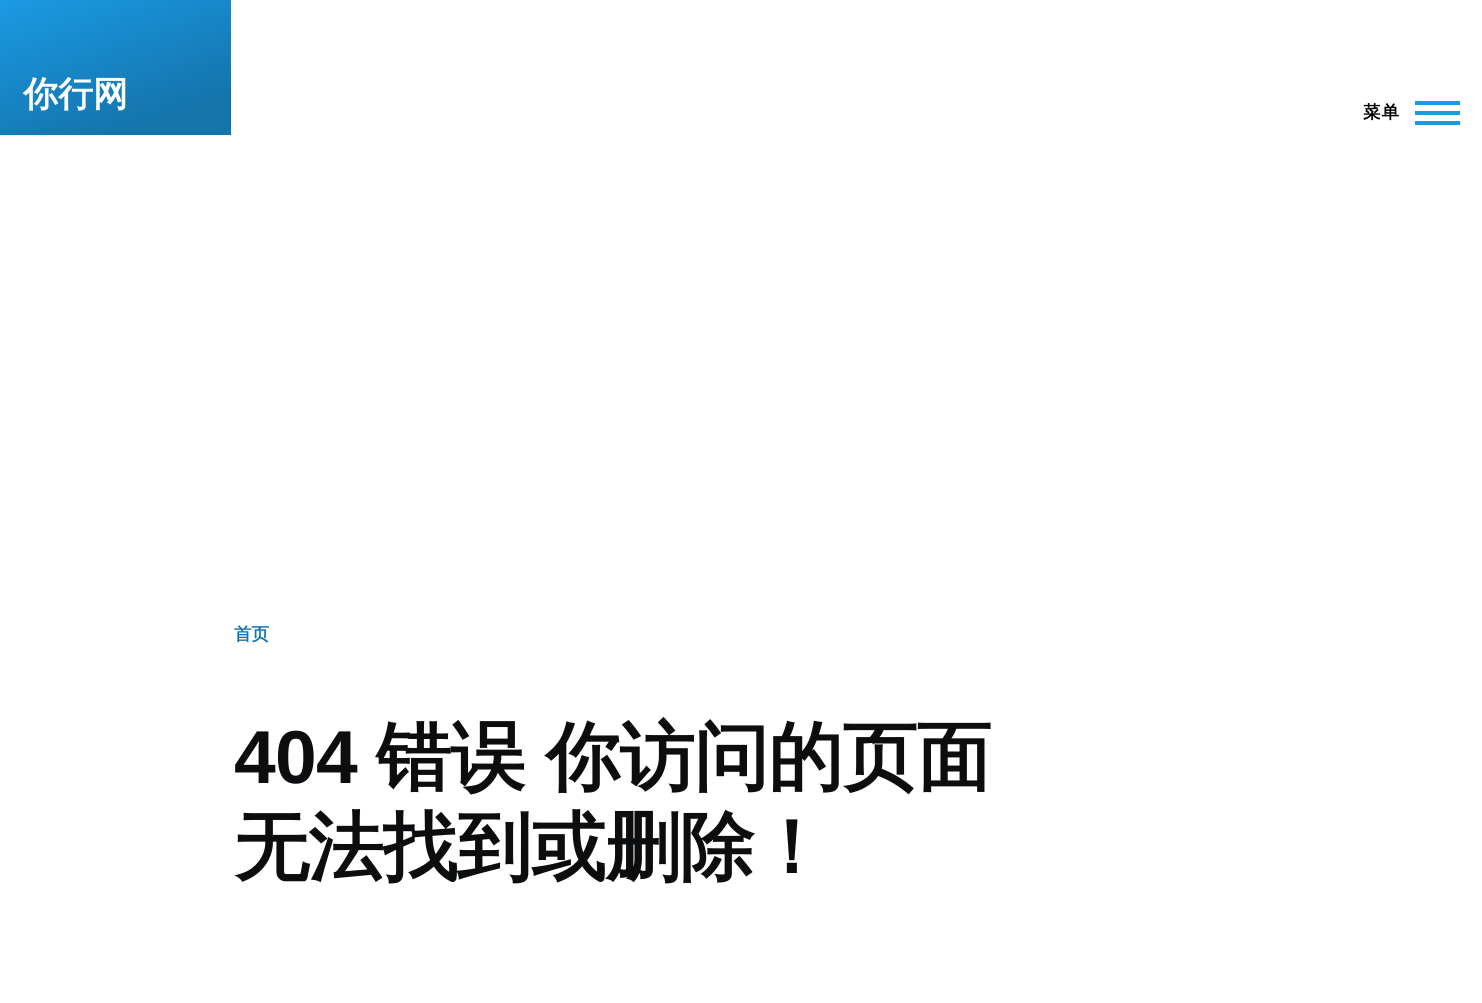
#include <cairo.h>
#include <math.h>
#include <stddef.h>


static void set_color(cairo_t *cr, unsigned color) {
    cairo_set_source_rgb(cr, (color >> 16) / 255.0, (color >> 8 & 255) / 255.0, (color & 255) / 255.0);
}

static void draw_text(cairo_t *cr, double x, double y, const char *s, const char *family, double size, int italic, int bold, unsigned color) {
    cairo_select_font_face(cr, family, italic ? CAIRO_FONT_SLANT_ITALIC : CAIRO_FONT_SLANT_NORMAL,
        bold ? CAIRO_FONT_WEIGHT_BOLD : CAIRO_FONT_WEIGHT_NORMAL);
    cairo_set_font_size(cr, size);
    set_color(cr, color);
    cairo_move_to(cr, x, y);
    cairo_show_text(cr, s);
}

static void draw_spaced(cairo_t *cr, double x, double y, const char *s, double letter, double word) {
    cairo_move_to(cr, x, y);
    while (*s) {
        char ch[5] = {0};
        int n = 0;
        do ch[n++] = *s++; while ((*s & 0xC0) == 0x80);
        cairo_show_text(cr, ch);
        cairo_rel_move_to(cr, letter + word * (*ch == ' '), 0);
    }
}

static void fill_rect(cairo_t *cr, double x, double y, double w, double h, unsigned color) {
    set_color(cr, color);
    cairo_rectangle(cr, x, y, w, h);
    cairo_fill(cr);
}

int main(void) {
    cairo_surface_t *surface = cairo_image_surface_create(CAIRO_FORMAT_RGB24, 1482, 1003);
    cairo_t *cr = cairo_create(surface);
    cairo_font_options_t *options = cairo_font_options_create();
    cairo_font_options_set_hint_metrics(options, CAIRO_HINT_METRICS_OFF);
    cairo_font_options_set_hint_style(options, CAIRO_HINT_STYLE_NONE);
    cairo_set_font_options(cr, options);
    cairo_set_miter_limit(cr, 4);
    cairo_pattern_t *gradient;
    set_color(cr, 0xFFFFFF);
    cairo_paint(cr);
    gradient = cairo_pattern_create_linear(80, -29, 151, 164);
    cairo_pattern_add_color_stop_rgba(gradient, 0, 0.106, 0.604, 0.894, 1);
    cairo_pattern_add_color_stop_rgba(gradient, 0.79, 0.078, 0.459, 0.678, 1);
    cairo_set_source(cr, gradient);
    cairo_pattern_destroy(gradient);
    cairo_rectangle(cr, 0, 0, 231, 135);
    cairo_fill(cr);
    draw_text(cr, 23, 106, "你行网", "WenQuanYi Zen Hei", 35, 0, 1, 0xFFFFFF);
    cairo_set_font_size(cr, 17.5);
    set_color(cr, 0x000000);
    draw_spaced(cr, 1363, 118, "菜单", 1, 0);
    fill_rect(cr, 1415, 111, 45, 4, 0x1B9AE4);
    fill_rect(cr, 1415, 101, 45, 4, 0x1B9AE4);
    fill_rect(cr, 1415, 121, 45, 4, 0x1B9AE4);
    draw_text(cr, 234, 640, "首页", "WenQuanYi Zen Hei", 17.5, 0, 1, 0x1475AD);
    cairo_select_font_face(cr, "Liberation Sans", CAIRO_FONT_SLANT_NORMAL, CAIRO_FONT_WEIGHT_BOLD);
    cairo_set_font_size(cr, 75);
    set_color(cr, 0x0B0D0F);
    draw_spaced(cr, 234, 783, "404", -0.75, 0);
    cairo_select_font_face(cr, "WenQuanYi Zen Hei", CAIRO_FONT_SLANT_NORMAL, CAIRO_FONT_WEIGHT_BOLD);
    draw_spaced(cr, 376, 783, "错误 你访问的页面", -0.75, -1);
    draw_spaced(cr, 234, 873, "无法找到或删除！", -0.75, 0);
    cairo_surface_write_to_png(surface, "output.png");
    cairo_font_options_destroy(options);
    cairo_destroy(cr);
    cairo_surface_destroy(surface);
    return 0;
}
